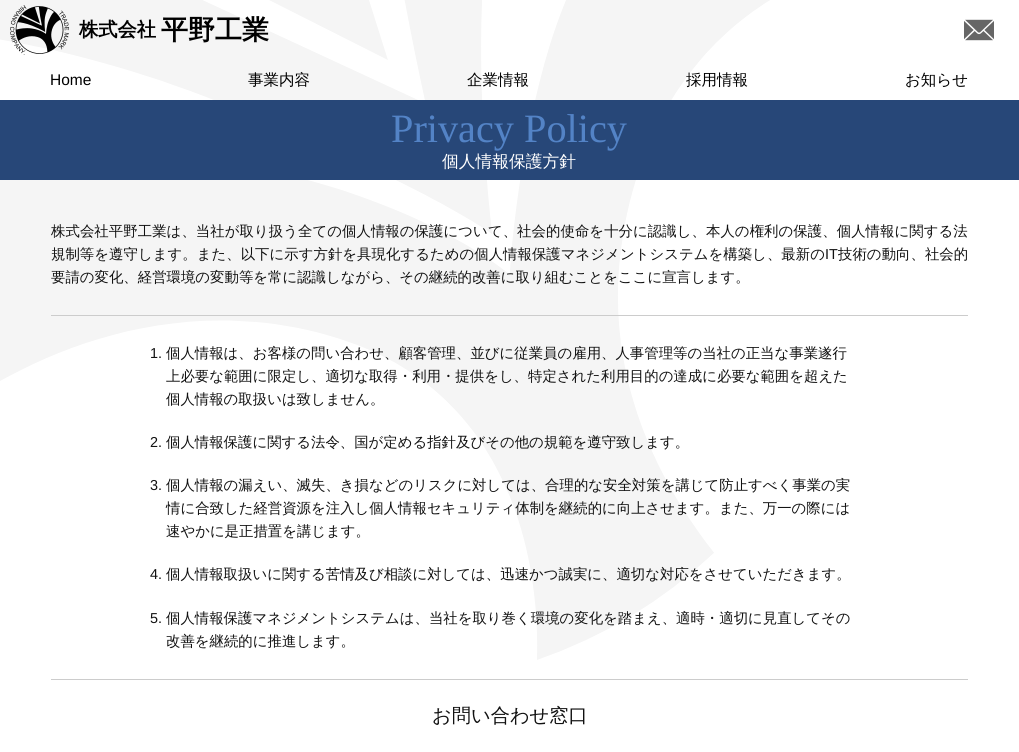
#include <cairo.h>
#include <math.h>
#include <stddef.h>


static void set_color(cairo_t *cr, unsigned color) {
    cairo_set_source_rgb(cr, (color >> 16) / 255.0, (color >> 8 & 255) / 255.0, (color & 255) / 255.0);
}

static void draw_text(cairo_t *cr, double x, double y, const char *s, const char *family, double size, int italic, int bold, unsigned color) {
    cairo_select_font_face(cr, family, italic ? CAIRO_FONT_SLANT_ITALIC : CAIRO_FONT_SLANT_NORMAL,
        bold ? CAIRO_FONT_WEIGHT_BOLD : CAIRO_FONT_WEIGHT_NORMAL);
    cairo_set_font_size(cr, size);
    set_color(cr, color);
    cairo_move_to(cr, x, y);
    cairo_show_text(cr, s);
}

static void draw_spaced(cairo_t *cr, double x, double y, const char *s, double letter, double word) {
    cairo_move_to(cr, x, y);
    while (*s) {
        char ch[5] = {0};
        int n = 0;
        do ch[n++] = *s++; while ((*s & 0xC0) == 0x80);
        cairo_show_text(cr, ch);
        cairo_rel_move_to(cr, letter + word * (*ch == ' '), 0);
    }
}

static void fill_rect(cairo_t *cr, double x, double y, double w, double h, unsigned color) {
    set_color(cr, color);
    cairo_rectangle(cr, x, y, w, h);
    cairo_fill(cr);
}

static void draw_image(cairo_t *cr, const char *path, double x, double y, double w, double h) {
    cairo_surface_t *image = cairo_image_surface_create_from_png(path);
    cairo_save(cr);
    cairo_set_source_surface(cr, image, x, y);
    cairo_rectangle(cr, x, y, w, h);
    cairo_fill(cr);
    cairo_restore(cr);
    cairo_surface_destroy(image);
}

int main(void) {
    cairo_surface_t *surface = cairo_image_surface_create(CAIRO_FORMAT_RGB24, 1019, 752);
    cairo_t *cr = cairo_create(surface);
    cairo_font_options_t *options = cairo_font_options_create();
    cairo_font_options_set_hint_metrics(options, CAIRO_HINT_METRICS_OFF);
    cairo_font_options_set_hint_style(options, CAIRO_HINT_STYLE_NONE);
    cairo_set_font_options(cr, options);
    cairo_set_miter_limit(cr, 4);
    set_color(cr, 0xFFFFFF);
    cairo_paint(cr);
    draw_image(cr, "assets/img1.png", 0, 0, 770, 660);
    draw_image(cr, "assets/img2.png", 10, 5, 59, 50);
    draw_text(cr, 79, 36, "株式会社", "WenQuanYi Zen Hei", 19.25, 0, 1, 0x000000);
    draw_text(cr, 161, 39, "平野工業", "WenQuanYi Zen Hei", 27, 0, 1, 0x000000);
    draw_image(cr, "assets/img3.png", 964, 19, 30, 22);
    draw_text(cr, 50, 85, "Home", "Liberation Sans", 15.5, 0, 0, 0x000000);
    draw_text(cr, 248, 85, "事業内容", "WenQuanYi Zen Hei Medium", 15.5, 0, 0, 0x000000);
    draw_text(cr, 467, 85, "企業情報", "WenQuanYi Zen Hei Medium", 15.5, 0, 0, 0x000000);
    draw_text(cr, 686, 85, "採用情報", "WenQuanYi Zen Hei Medium", 15.5, 0, 0, 0x000000);
    draw_text(cr, 905, 85, "お知らせ", "WenQuanYi Zen Hei Medium", 15.5, 0, 0, 0x000000);
    fill_rect(cr, 0, 100, 1019, 80, 0x274778);
    draw_text(cr, 391, 142, "Privacy Policy", "Liberation Serif", 40.25, 0, 0, 0x5383C6);
    draw_text(cr, 442, 167, "個人情報保護方針", "WenQuanYi Zen Hei Medium", 16.75, 0, 0, 0xFFFFFF);
    cairo_set_font_size(cr, 14.4);
    set_color(cr, 0x111111);
    draw_spaced(cr, 51, 236, "株式会社平野工業は、当社が取り扱う全ての個人情報の保護について、社会的使命を十分に認識し、本人の権利の保護、個人情報に関する法", 0.05, 0);
    draw_spaced(cr, 51, 259, "規制等を遵守します。また、以下に示す方針を具現化するための個人情報保護マネジメントシステムを構築し、最新の", 0.03, 0);
    cairo_select_font_face(cr, "Liberation Sans", CAIRO_FONT_SLANT_NORMAL, CAIRO_FONT_WEIGHT_NORMAL);
    draw_spaced(cr, 825, 259, "IT", 0.03, 0);
    cairo_select_font_face(cr, "WenQuanYi Zen Hei Medium", CAIRO_FONT_SLANT_NORMAL, CAIRO_FONT_WEIGHT_NORMAL);
    draw_spaced(cr, 838, 259, "技術の動向、社会的", 0.03, 0);
    draw_text(cr, 51, 282, "要請の変化、経営環境の変動等を常に認識しながら、その継続的改善に取り組むことをここに宣言します。", "WenQuanYi Zen Hei Medium", 14.4, 0, 0, 0x111111);
    fill_rect(cr, 51, 315, 917, 1, 0xCCCCCC);
    draw_text(cr, 150, 358, "1.", "Liberation Sans", 14.4, 0, 0, 0x111111);
    draw_text(cr, 166, 358, "個人情報は、お客様の問い合わせ、顧客管理、並びに従業員の雇用、人事管理等の当社の正当な事業遂行", "WenQuanYi Zen Hei Medium", 14.4, 0, 0, 0x111111);
    draw_text(cr, 166, 381, "上必要な範囲に限定し、適切な取得・利用・提供をし、特定された利用目的の達成に必要な範囲を超えた", "WenQuanYi Zen Hei Medium", 14.4, 0, 0, 0x111111);
    draw_text(cr, 166, 404, "個人情報の取扱いは致しません。", "WenQuanYi Zen Hei Medium", 14.4, 0, 0, 0x111111);
    draw_text(cr, 150, 447, "2.", "Liberation Sans", 14.4, 0, 0, 0x111111);
    draw_text(cr, 166, 447, "個人情報保護に関する法令、国が定める指針及びその他の規範を遵守致します。", "WenQuanYi Zen Hei Medium", 14.4, 0, 0, 0x111111);
    draw_text(cr, 150, 490, "3.", "Liberation Sans", 14.4, 0, 0, 0x111111);
    draw_text(cr, 166, 490, "個人情報の漏えい、滅失、き損などのリスクに対しては、合理的な安全対策を講じて防止すべく事業の実", "WenQuanYi Zen Hei Medium", 14.4, 0, 0, 0x111111);
    draw_text(cr, 166, 513, "情に合致した経営資源を注入し個人情報セキュリティ体制を継続的に向上させます。また、万一の際には", "WenQuanYi Zen Hei Medium", 14.4, 0, 0, 0x111111);
    draw_text(cr, 166, 536, "速やかに是正措置を講じます。", "WenQuanYi Zen Hei Medium", 14.4, 0, 0, 0x111111);
    draw_text(cr, 150, 579, "4.", "Liberation Sans", 14.4, 0, 0, 0x111111);
    draw_text(cr, 166, 579, "個人情報取扱いに関する苦情及び相談に対しては、迅速かつ誠実に、適切な対応をさせていただきます。", "WenQuanYi Zen Hei Medium", 14.4, 0, 0, 0x111111);
    draw_text(cr, 150, 623, "5.", "Liberation Sans", 14.4, 0, 0, 0x111111);
    draw_text(cr, 166, 623, "個人情報保護マネジメントシステムは、当社を取り巻く環境の変化を踏まえ、適時・適切に見直してその", "WenQuanYi Zen Hei Medium", 14.4, 0, 0, 0x111111);
    draw_text(cr, 166, 646, "改善を継続的に推進します。", "WenQuanYi Zen Hei Medium", 14.4, 0, 0, 0x111111);
    fill_rect(cr, 51, 679, 917, 1, 0xCCCCCC);
    draw_text(cr, 432, 722, "お問い合わせ窓口", "WenQuanYi Zen Hei Medium", 19.25, 0, 0, 0x111111);
    cairo_surface_write_to_png(surface, "output.png");
    cairo_font_options_destroy(options);
    cairo_destroy(cr);
    cairo_surface_destroy(surface);
    return 0;
}
